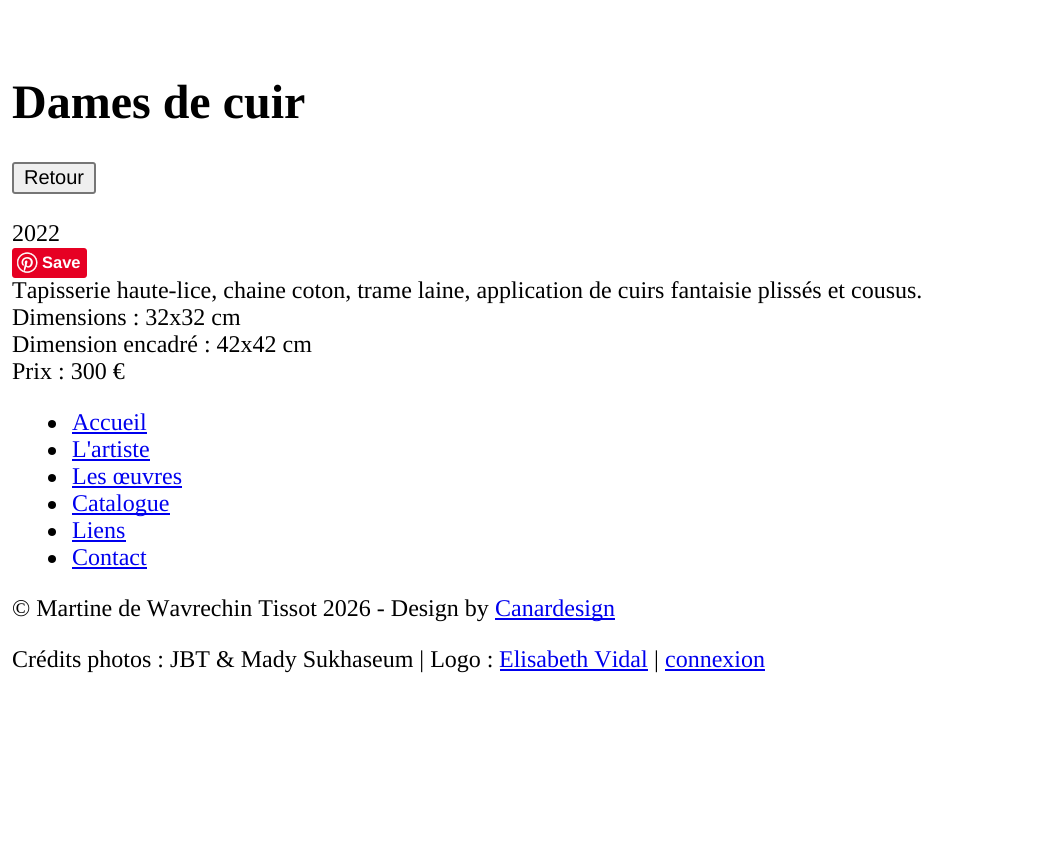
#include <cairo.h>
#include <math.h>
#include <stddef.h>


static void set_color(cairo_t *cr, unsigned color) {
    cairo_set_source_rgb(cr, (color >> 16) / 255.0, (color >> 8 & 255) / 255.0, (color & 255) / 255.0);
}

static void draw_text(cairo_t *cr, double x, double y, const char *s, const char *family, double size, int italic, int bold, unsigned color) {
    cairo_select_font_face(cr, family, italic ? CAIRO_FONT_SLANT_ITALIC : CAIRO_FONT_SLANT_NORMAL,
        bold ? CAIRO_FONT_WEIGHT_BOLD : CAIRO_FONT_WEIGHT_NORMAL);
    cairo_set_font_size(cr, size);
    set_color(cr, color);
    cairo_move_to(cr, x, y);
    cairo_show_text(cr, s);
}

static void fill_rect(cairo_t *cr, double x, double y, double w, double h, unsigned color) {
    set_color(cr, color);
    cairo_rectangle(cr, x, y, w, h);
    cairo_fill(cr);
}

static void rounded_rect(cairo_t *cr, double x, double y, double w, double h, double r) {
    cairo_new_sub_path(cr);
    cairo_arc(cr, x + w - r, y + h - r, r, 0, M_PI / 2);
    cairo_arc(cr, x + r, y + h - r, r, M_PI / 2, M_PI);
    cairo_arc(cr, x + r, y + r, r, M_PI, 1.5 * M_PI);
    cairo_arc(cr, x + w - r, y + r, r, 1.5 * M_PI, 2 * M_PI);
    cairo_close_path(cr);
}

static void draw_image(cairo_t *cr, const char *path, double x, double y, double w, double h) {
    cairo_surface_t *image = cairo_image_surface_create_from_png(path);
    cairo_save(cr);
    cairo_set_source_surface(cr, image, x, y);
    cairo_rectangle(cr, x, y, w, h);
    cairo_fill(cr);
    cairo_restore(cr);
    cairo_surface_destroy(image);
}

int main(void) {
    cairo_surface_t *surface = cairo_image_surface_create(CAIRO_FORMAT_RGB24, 1045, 864);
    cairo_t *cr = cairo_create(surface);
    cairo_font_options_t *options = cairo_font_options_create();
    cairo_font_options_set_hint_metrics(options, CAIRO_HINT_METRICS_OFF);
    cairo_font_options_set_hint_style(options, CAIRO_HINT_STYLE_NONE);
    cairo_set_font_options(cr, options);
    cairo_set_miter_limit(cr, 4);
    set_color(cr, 0xFFFFFF);
    cairo_paint(cr);
    draw_text(cr, 12, 118, "Dames de cuir", "Liberation Serif", 48, 0, 1, 0x000000);
    set_color(cr, 0xEFEFEF);
    rounded_rect(cr, 13, 163, 82, 30, 2);
    cairo_fill_preserve(cr);
    set_color(cr, 0x767676);
    cairo_stroke(cr);
    draw_text(cr, 24, 184, "Retour", "Liberation Sans", 20, 0, 0, 0x000000);
    draw_text(cr, 12, 241, "2022", "Liberation Serif", 24, 0, 0, 0x000000);
    set_color(cr, 0xE60023);
    rounded_rect(cr, 12, 248, 75, 30, 3);
    cairo_fill(cr);
    draw_image(cr, "assets/img1.png", 17, 252, 21, 21);
    draw_text(cr, 42, 268, "Save", "Liberation Sans", 16.5, 0, 1, 0xFFFFFF);
    draw_text(cr, 12, 298, "Tapisserie haute-lice, chaine coton, trame laine, application de cuirs fantaisie plissés et cousus.", "Liberation Serif", 24, 0, 0, 0x000000);
    draw_text(cr, 12, 325, "Dimensions : 32x32 cm", "Liberation Serif", 24, 0, 0, 0x000000);
    draw_text(cr, 12, 352, "Dimension encadré : 42x42 cm", "Liberation Serif", 24, 0, 0, 0x000000);
    draw_text(cr, 12, 379, "Prix : 300 €", "Liberation Serif", 24, 0, 0, 0x000000);
    cairo_new_path(cr);
    cairo_arc(cr, 52, 424, 4, 0, 2 * M_PI);
    cairo_fill(cr);
    draw_text(cr, 72, 430, "Accueil", "Liberation Serif", 24, 0, 0, 0x0000EE);
    fill_rect(cr, 72, 432, 75, 2, 0x0000EE);
    set_color(cr, 0x000000);
    cairo_new_path(cr);
    cairo_arc(cr, 52, 451, 4, 0, 2 * M_PI);
    cairo_fill(cr);
    draw_text(cr, 72, 457, "L'artiste", "Liberation Serif", 24, 0, 0, 0x0000EE);
    fill_rect(cr, 72, 459, 78, 2, 0x0000EE);
    set_color(cr, 0x000000);
    cairo_new_path(cr);
    cairo_arc(cr, 52, 478, 4, 0, 2 * M_PI);
    cairo_fill(cr);
    draw_text(cr, 72, 484, "Les œuvres", "Liberation Serif", 24, 0, 0, 0x0000EE);
    fill_rect(cr, 72, 486, 110, 2, 0x0000EE);
    set_color(cr, 0x000000);
    cairo_new_path(cr);
    cairo_arc(cr, 52, 505, 4, 0, 2 * M_PI);
    cairo_fill(cr);
    fill_rect(cr, 72, 513, 98, 2, 0x0000EE);
    draw_text(cr, 72, 511, "Catalogue", "Liberation Serif", 24, 0, 0, 0x0000EE);
    set_color(cr, 0x000000);
    cairo_new_path(cr);
    cairo_arc(cr, 52, 532, 4, 0, 2 * M_PI);
    cairo_fill(cr);
    draw_text(cr, 72, 538, "Liens", "Liberation Serif", 24, 0, 0, 0x0000EE);
    fill_rect(cr, 72, 540, 54, 2, 0x0000EE);
    set_color(cr, 0x000000);
    cairo_new_path(cr);
    cairo_arc(cr, 52, 559, 4, 0, 2 * M_PI);
    cairo_fill(cr);
    draw_text(cr, 72, 565, "Contact", "Liberation Serif", 24, 0, 0, 0x0000EE);
    fill_rect(cr, 72, 567, 75, 2, 0x0000EE);
    draw_text(cr, 12, 616, "© Martine de Wavrechin Tissot 2026 - Design by", "Liberation Serif", 24, 0, 0, 0x000000);
    fill_rect(cr, 495, 618, 120, 2, 0x0000EE);
    draw_text(cr, 495, 616, "Canardesign", "Liberation Serif", 24, 0, 0, 0x0000EE);
    draw_text(cr, 12, 667, "Crédits photos : JBT & Mady Sukhaseum | Logo :", "Liberation Serif", 24, 0, 0, 0x000000);
    draw_text(cr, 499, 667, "Elisabeth Vidal", "Liberation Serif", 24, 0, 0, 0x0000EE);
    fill_rect(cr, 500, 669, 148, 2, 0x0000EE);
    draw_text(cr, 654, 667, "|", "Liberation Serif", 24, 0, 0, 0x000000);
    draw_text(cr, 665, 667, "connexion", "Liberation Serif", 24, 0, 0, 0x0000EE);
    fill_rect(cr, 665, 669, 100, 2, 0x0000EE);
    cairo_surface_write_to_png(surface, "output.png");
    cairo_font_options_destroy(options);
    cairo_destroy(cr);
    cairo_surface_destroy(surface);
    return 0;
}
